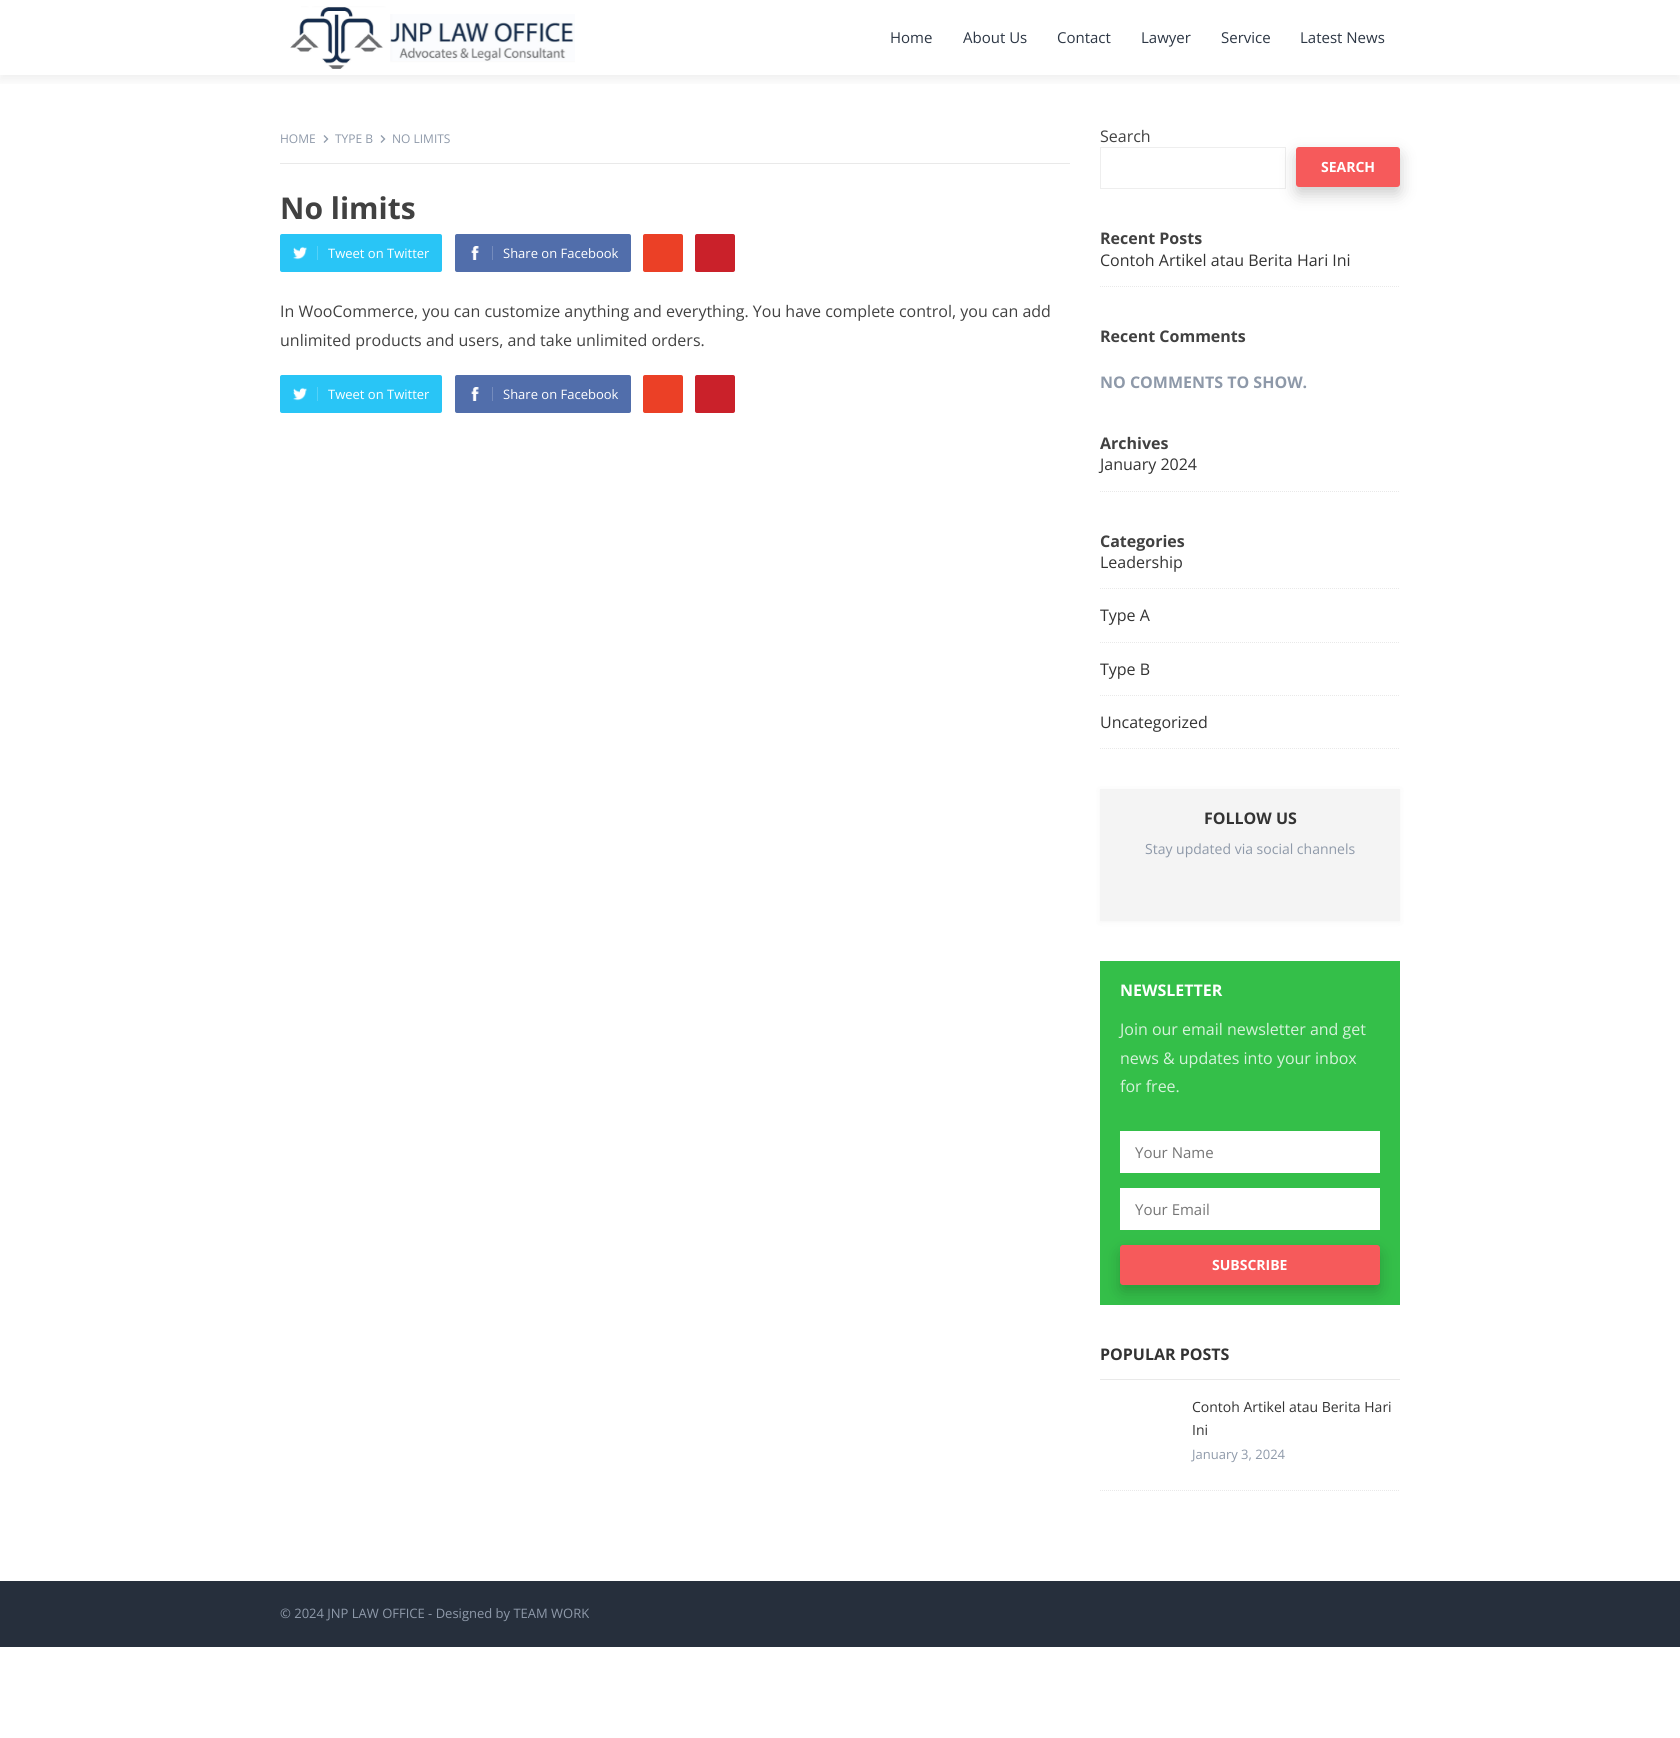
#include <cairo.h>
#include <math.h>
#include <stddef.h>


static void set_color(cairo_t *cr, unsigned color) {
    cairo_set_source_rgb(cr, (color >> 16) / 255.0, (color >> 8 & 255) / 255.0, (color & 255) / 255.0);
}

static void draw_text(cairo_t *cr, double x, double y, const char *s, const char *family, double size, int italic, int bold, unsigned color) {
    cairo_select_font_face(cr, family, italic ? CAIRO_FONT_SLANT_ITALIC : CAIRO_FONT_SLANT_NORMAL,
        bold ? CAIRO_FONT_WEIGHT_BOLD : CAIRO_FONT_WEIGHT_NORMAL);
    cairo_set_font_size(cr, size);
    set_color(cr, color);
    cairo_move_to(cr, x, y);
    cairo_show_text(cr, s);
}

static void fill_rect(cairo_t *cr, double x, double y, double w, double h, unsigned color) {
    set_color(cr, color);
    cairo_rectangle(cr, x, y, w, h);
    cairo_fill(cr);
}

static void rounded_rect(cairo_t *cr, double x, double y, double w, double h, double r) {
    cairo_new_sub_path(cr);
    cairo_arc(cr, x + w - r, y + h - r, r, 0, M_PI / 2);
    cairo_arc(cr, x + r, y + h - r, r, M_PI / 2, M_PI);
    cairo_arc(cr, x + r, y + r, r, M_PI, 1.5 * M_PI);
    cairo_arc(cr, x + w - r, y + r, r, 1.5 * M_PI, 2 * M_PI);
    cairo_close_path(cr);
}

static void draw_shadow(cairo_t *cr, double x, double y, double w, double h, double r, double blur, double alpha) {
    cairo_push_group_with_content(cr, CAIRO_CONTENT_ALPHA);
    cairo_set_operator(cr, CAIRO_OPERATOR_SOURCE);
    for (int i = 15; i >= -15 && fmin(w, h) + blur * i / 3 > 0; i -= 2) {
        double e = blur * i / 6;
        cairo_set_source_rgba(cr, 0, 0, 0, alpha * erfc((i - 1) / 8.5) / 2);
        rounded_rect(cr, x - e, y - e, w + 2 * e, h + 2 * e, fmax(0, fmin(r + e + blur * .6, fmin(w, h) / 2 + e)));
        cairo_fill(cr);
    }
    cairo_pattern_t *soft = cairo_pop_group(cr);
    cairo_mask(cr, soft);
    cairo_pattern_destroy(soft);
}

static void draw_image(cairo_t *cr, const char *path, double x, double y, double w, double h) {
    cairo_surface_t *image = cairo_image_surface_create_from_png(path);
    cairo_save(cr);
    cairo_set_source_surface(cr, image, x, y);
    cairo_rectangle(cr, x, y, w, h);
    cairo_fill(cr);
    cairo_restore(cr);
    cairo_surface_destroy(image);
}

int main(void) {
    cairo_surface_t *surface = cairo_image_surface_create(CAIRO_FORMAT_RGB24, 1680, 1738);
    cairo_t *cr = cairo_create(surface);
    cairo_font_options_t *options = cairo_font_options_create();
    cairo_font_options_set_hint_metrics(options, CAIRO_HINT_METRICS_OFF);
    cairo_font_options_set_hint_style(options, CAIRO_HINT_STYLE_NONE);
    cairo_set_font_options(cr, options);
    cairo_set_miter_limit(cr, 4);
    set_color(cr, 0xFFFFFF);
    cairo_paint(cr);
    cairo_save(cr);
    cairo_rectangle(cr, 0, 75, 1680, 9);
    cairo_clip(cr);
    set_color(cr, 0x323232);
    draw_shadow(cr, 0, 5, 1680, 75, 0, 5.5, 0.08);
    cairo_restore(cr);
    draw_image(cr, "assets/img1.png", 290, 6, 285, 63);
    draw_text(cr, 890, 43, "Home", "Open Sans", 15, 0, 0, 0x2C3644);
    draw_text(cr, 963, 43, "About Us", "Open Sans", 15, 0, 0, 0x2C3644);
    draw_text(cr, 1057, 43, "Contact", "Open Sans", 15, 0, 0, 0x2C3644);
    draw_text(cr, 1141, 43, "Lawyer", "Open Sans", 15, 0, 0, 0x2C3644);
    draw_text(cr, 1221, 43, "Service", "Open Sans", 15, 0, 0, 0x2C3644);
    draw_text(cr, 1300, 43, "Latest News", "Open Sans", 15, 0, 0, 0x2C3644);
    fill_rect(cr, 280, 163, 790, 1, 0xE9E9E9);
    draw_text(cr, 280, 143, "HOME", "Open Sans", 12, 0, 0, 0x8E99A9);
    draw_image(cr, "assets/img2.png", 323, 135, 6, 8);
    draw_text(cr, 335, 143, "TYPE B", "Open Sans", 12, 0, 0, 0x8E99A9);
    draw_image(cr, "assets/img2.png", 380, 135, 6, 8);
    draw_text(cr, 392, 143, "NO LIMITS", "Open Sans", 12, 0, 0, 0x8E99A9);
    draw_text(cr, 280, 219, "No limits", "Open Sans", 30, 0, 1, 0x414141);
    set_color(cr, 0x29C5F6);
    rounded_rect(cr, 280, 234, 162, 38, 2);
    cairo_fill(cr);
    draw_image(cr, "assets/img3.png", 293, 246, 14, 14);
    fill_rect(cr, 317, 246, 1, 14, 0x54D1F8);
    draw_text(cr, 328, 258, "Tweet on Twitter", "Open Sans", 13, 0, 0, 0xFFFFFF);
    set_color(cr, 0x516EAB);
    rounded_rect(cr, 455, 234, 176, 38, 2);
    cairo_fill(cr);
    draw_image(cr, "assets/img4.png", 471, 246, 8, 14);
    fill_rect(cr, 492, 246, 1, 14, 0x748BBC);
    draw_text(cr, 503, 258, "Share on Facebook", "Open Sans", 13, 0, 0, 0xFFFFFF);
    set_color(cr, 0xEB4026);
    rounded_rect(cr, 643, 234, 40, 38, 2);
    cairo_fill(cr);
    set_color(cr, 0xCA212A);
    rounded_rect(cr, 695, 234, 40, 38, 2);
    cairo_fill(cr);
    draw_text(cr, 280, 317, "In WooCommerce, you can customize anything and everything. You have complete control, you can add", "Open Sans", 16, 0, 0, 0x414141);
    draw_text(cr, 280, 346, "unlimited products and users, and take unlimited orders.", "Open Sans", 16, 0, 0, 0x414141);
    set_color(cr, 0x29C5F6);
    rounded_rect(cr, 280, 375, 162, 38, 2);
    cairo_fill(cr);
    draw_image(cr, "assets/img3.png", 293, 387, 14, 14);
    fill_rect(cr, 317, 387, 1, 14, 0x54D1F8);
    draw_text(cr, 328, 399, "Tweet on Twitter", "Open Sans", 13, 0, 0, 0xFFFFFF);
    set_color(cr, 0x516EAB);
    rounded_rect(cr, 455, 375, 176, 38, 2);
    cairo_fill(cr);
    draw_image(cr, "assets/img4.png", 471, 387, 8, 14);
    fill_rect(cr, 492, 387, 1, 14, 0x748BBC);
    draw_text(cr, 503, 399, "Share on Facebook", "Open Sans", 13, 0, 0, 0xFFFFFF);
    set_color(cr, 0xEB4026);
    rounded_rect(cr, 643, 375, 40, 38, 2);
    cairo_fill(cr);
    set_color(cr, 0xCA212A);
    rounded_rect(cr, 695, 375, 40, 38, 2);
    cairo_fill(cr);
    draw_text(cr, 1100, 142, "Search", "Open Sans", 16, 0, 0, 0x414141);
    cairo_rectangle(cr, 1100.5, 147.5, 185, 41);
    set_color(cr, 0xEEEEEE);
    cairo_set_line_width(cr, 1);
    cairo_stroke(cr);
    set_color(cr, 0x000000);
    draw_shadow(cr, 1296, 154, 104, 40, 3, 8, 0.2);
    set_color(cr, 0xF65A5B);
    rounded_rect(cr, 1296, 147, 104, 40, 3);
    cairo_fill(cr);
    draw_text(cr, 1321, 172, "SEARCH", "Open Sans", 14, 0, 1, 0xFFFFFF);
    draw_text(cr, 1100, 244, "Recent Posts", "Open Sans", 16, 0, 1, 0x414141);
    cairo_new_path(cr);
    cairo_move_to(cr, 1100, 286.5);
    cairo_line_to(cr, 1400, 286.5);
    set_color(cr, 0xE9E9E9);
    cairo_set_dash(cr, (double[]){1, 1}, 2, 0);
    cairo_stroke(cr);
    draw_text(cr, 1100, 266, "Contoh Artikel atau Berita Hari Ini", "Open Sans", 16, 0, 0, 0x333333);
    draw_text(cr, 1100, 342, "Recent Comments", "Open Sans", 16, 0, 1, 0x414141);
    draw_text(cr, 1100, 388, "NO COMMENTS TO SHOW.", "Open Sans", 16, 0, 1, 0x8E99A9);
    draw_text(cr, 1100, 449, "Archives", "Open Sans", 16, 0, 1, 0x414141);
    cairo_new_path(cr);
    cairo_move_to(cr, 1100, 491.5);
    cairo_line_to(cr, 1400, 491.5);
    set_color(cr, 0xE9E9E9);
    cairo_stroke(cr);
    draw_text(cr, 1100, 470, "January 2024", "Open Sans", 16, 0, 0, 0x333333);
    draw_text(cr, 1100, 547, "Categories", "Open Sans", 16, 0, 1, 0x414141);
    cairo_new_path(cr);
    cairo_move_to(cr, 1100, 588.5);
    cairo_line_to(cr, 1400, 588.5);
    set_color(cr, 0xE9E9E9);
    cairo_stroke(cr);
    draw_text(cr, 1100, 568, "Leadership", "Open Sans", 16, 0, 0, 0x333333);
    cairo_new_path(cr);
    cairo_move_to(cr, 1100, 642.5);
    cairo_line_to(cr, 1400, 642.5);
    set_color(cr, 0xE9E9E9);
    cairo_stroke(cr);
    draw_text(cr, 1100, 621, "Type A", "Open Sans", 16, 0, 0, 0x333333);
    cairo_new_path(cr);
    cairo_move_to(cr, 1100, 695.5);
    cairo_line_to(cr, 1400, 695.5);
    set_color(cr, 0xE9E9E9);
    cairo_stroke(cr);
    draw_text(cr, 1100, 675, "Type B", "Open Sans", 16, 0, 0, 0x333333);
    cairo_new_path(cr);
    cairo_move_to(cr, 1100, 748.5);
    cairo_line_to(cr, 1400, 748.5);
    set_color(cr, 0xE9E9E9);
    cairo_stroke(cr);
    draw_text(cr, 1100, 728, "Uncategorized", "Open Sans", 16, 0, 0, 0x333333);
    set_color(cr, 0x323232);
    draw_shadow(cr, 1100, 790, 300, 132, 0, 3, 0.05);
    fill_rect(cr, 1100, 789, 300, 132, 0xF4F4F4);
    draw_text(cr, 1204, 824, "FOLLOW US", "Open Sans", 16, 0, 1, 0x333333);
    draw_text(cr, 1145, 854, "Stay updated via social channels", "Open Sans", 14, 0, 0, 0x8E99A9);
    fill_rect(cr, 1100, 961, 300, 344, 0x34BF49);
    draw_text(cr, 1120, 996, "NEWSLETTER", "Open Sans", 16, 0, 1, 0xFFFFFF);
    draw_text(cr, 1120, 1035, "Join our email newsletter and get", "Open Sans", 16, 0, 0, 0xD6F2DB);
    draw_text(cr, 1120, 1064, "news & updates into your inbox", "Open Sans", 16, 0, 0, 0xD6F2DB);
    draw_text(cr, 1120, 1092, "for free.", "Open Sans", 16, 0, 0, 0xD6F2DB);
    fill_rect(cr, 1120, 1131, 260, 42, 0xFFFFFF);
    draw_text(cr, 1135, 1158, "Your Name", "Open Sans", 15, 0, 0, 0x757575);
    fill_rect(cr, 1120, 1188, 260, 42, 0xFFFFFF);
    draw_text(cr, 1135, 1215, "Your Email", "Open Sans", 15, 0, 0, 0x757575);
    set_color(cr, 0x000000);
    draw_shadow(cr, 1120, 1252, 260, 40, 3, 8, 0.2);
    set_color(cr, 0xF65A5B);
    rounded_rect(cr, 1120, 1245, 260, 40, 3);
    cairo_fill(cr);
    draw_text(cr, 1212, 1270, "SUBSCRIBE", "Open Sans", 14, 0, 1, 0xFFFFFF);
    fill_rect(cr, 1100, 1379, 300, 1, 0xE9E9E9);
    draw_text(cr, 1100, 1360, "POPULAR POSTS", "Open Sans", 16, 0, 1, 0x333333);
    cairo_new_path(cr);
    cairo_move_to(cr, 1100, 1490.5);
    cairo_line_to(cr, 1400, 1490.5);
    set_color(cr, 0xE9E9E9);
    cairo_stroke(cr);
    draw_text(cr, 1192, 1412, "Contoh Artikel atau Berita Hari", "Open Sans", 14, 0, 0, 0x333333);
    draw_text(cr, 1192, 1435, "Ini", "Open Sans", 14, 0, 0, 0x333333);
    draw_text(cr, 1192, 1459, "January 3, 2024", "Open Sans", 13, 0, 0, 0x8E99A9);
    fill_rect(cr, 0, 1581, 1680, 66, 0x262F3C);
    draw_text(cr, 280, 1618, "© 2024 JNP LAW OFFICE - Designed by TEAM WORK", "Open Sans", 13, 0, 0, 0x8E99A9);
    cairo_surface_write_to_png(surface, "output.png");
    cairo_font_options_destroy(options);
    cairo_destroy(cr);
    cairo_surface_destroy(surface);
    return 0;
}
